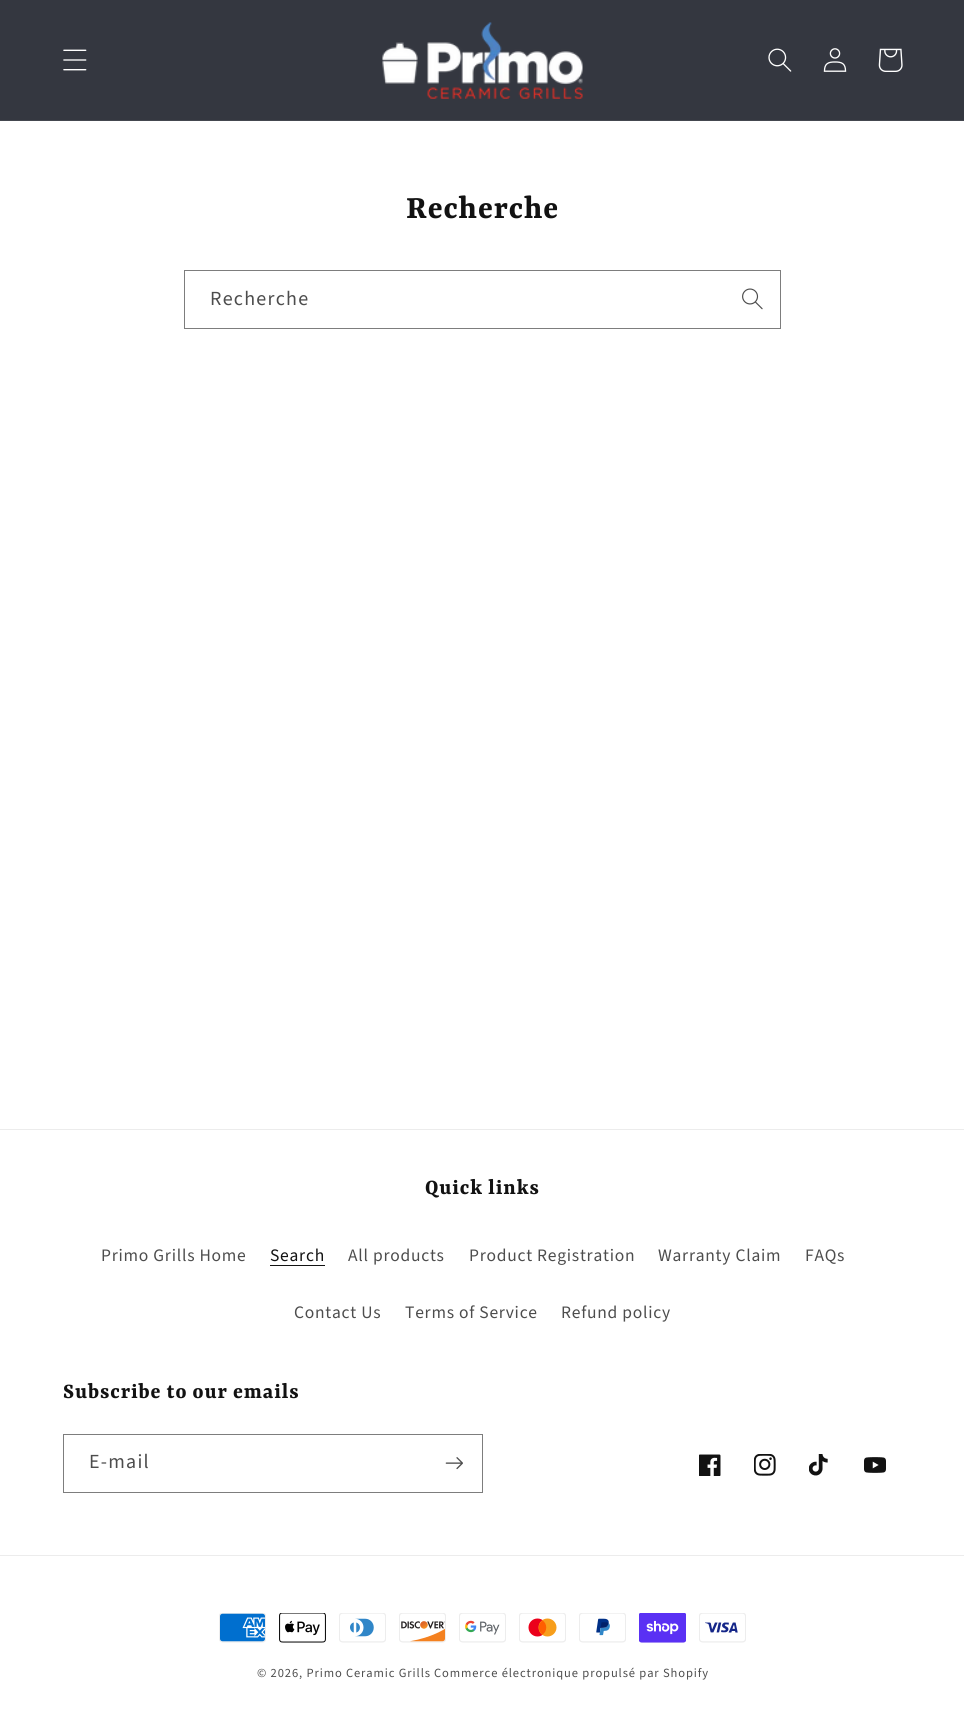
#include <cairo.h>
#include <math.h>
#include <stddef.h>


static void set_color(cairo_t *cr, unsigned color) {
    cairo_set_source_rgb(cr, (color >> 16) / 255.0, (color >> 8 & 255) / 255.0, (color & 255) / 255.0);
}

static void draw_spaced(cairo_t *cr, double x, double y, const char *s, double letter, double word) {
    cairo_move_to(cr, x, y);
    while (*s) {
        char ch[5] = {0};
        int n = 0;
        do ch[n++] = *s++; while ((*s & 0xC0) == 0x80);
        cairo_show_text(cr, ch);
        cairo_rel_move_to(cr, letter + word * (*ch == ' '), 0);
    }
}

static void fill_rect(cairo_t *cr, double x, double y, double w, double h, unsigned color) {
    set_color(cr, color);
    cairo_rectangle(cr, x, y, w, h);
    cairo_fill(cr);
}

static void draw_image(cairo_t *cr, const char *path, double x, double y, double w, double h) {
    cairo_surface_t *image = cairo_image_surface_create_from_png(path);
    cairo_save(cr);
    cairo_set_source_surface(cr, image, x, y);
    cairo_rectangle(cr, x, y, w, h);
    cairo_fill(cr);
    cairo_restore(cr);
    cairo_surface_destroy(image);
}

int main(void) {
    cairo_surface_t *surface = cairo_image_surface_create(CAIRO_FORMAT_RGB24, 964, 1731);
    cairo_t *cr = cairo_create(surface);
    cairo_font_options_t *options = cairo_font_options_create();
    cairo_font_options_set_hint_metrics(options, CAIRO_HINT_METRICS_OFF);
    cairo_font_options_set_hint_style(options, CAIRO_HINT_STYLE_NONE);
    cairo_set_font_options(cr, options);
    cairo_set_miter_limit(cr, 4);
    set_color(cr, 0xFFFFFF);
    cairo_paint(cr);
    fill_rect(cr, 0, 0, 964, 120, 0x343740);
    fill_rect(cr, 0, 120, 964, 1, 0x44474F);
    draw_image(cr, "assets/img1.png", 63, 49, 24, 22);
    draw_image(cr, "assets/img2.png", 382, 22, 201, 77);
    draw_image(cr, "assets/img3.png", 768, 48, 24, 24);
    draw_image(cr, "assets/img4.png", 823, 48, 24, 24);
    draw_image(cr, "assets/img5.png", 878, 48, 25, 24);
    cairo_select_font_face(cr, "Yrsa", CAIRO_FONT_SLANT_NORMAL, CAIRO_FONT_WEIGHT_BOLD);
    cairo_set_font_size(cr, 34.5);
    set_color(cr, 0x121212);
    draw_spaced(cr, 406, 218, "Recherche", 0.9, 0);
    draw_image(cr, "assets/img6.png", 742, 288, 21, 22);
    cairo_rectangle(cr, 184.5, 270.5, 596, 58);
    set_color(cr, 0x7D7D7D);
    cairo_set_line_width(cr, 1);
    cairo_stroke(cr);
    cairo_select_font_face(cr, "Source Sans Pro", CAIRO_FONT_SLANT_NORMAL, CAIRO_FONT_WEIGHT_NORMAL);
    cairo_set_font_size(cr, 20);
    set_color(cr, 0x4D4D4D);
    draw_spaced(cr, 210, 305, "Recherche", 1.25, 0);
    fill_rect(cr, 0, 1129, 964, 1, 0xECECEC);
    cairo_select_font_face(cr, "Yrsa", CAIRO_FONT_SLANT_NORMAL, CAIRO_FONT_WEIGHT_BOLD);
    cairo_set_font_size(cr, 23);
    set_color(cr, 0x121212);
    draw_spaced(cr, 425, 1194, "Quick links", 0.9, 0);
    cairo_select_font_face(cr, "Source Sans Pro", CAIRO_FONT_SLANT_NORMAL, CAIRO_FONT_WEIGHT_NORMAL);
    cairo_set_font_size(cr, 17.5);
    set_color(cr, 0x4D4D4D);
    draw_spaced(cr, 101, 1261, "Primo Grills Home", 0.75, 0);
    set_color(cr, 0x121212);
    draw_spaced(cr, 270, 1261, "Search", 0.75, 0);
    fill_rect(cr, 270, 1265, 55, 1, 0x121212);
    set_color(cr, 0x4D4D4D);
    draw_spaced(cr, 348, 1261, "All products", 0.75, 0);
    draw_spaced(cr, 469, 1261, "Product Registration", 0.75, 0);
    draw_spaced(cr, 658, 1261, "Warranty Claim", 0.75, 0);
    draw_spaced(cr, 805, 1261, "FAQs", 0.75, 0);
    draw_spaced(cr, 294, 1318, "Contact Us", 0.75, 0);
    draw_spaced(cr, 405, 1318, "Terms of Service", 0.75, 0);
    draw_spaced(cr, 561, 1318, "Refund policy", 0.75, 0);
    cairo_select_font_face(cr, "Yrsa", CAIRO_FONT_SLANT_NORMAL, CAIRO_FONT_WEIGHT_BOLD);
    cairo_set_font_size(cr, 23);
    set_color(cr, 0x121212);
    draw_spaced(cr, 63, 1398, "Subscribe to our emails", 0.9, 0);
    cairo_rectangle(cr, 63.5, 1434.5, 419, 58);
    set_color(cr, 0x7D7D7D);
    cairo_stroke(cr);
    cairo_select_font_face(cr, "Source Sans Pro", CAIRO_FONT_SLANT_NORMAL, CAIRO_FONT_WEIGHT_NORMAL);
    cairo_set_font_size(cr, 20);
    set_color(cr, 0x4D4D4D);
    draw_spaced(cr, 89, 1468, "E-mail", 1.25, 0);
    draw_image(cr, "assets/img7.png", 445, 1457, 18, 13);
    draw_image(cr, "assets/img8.png", 699, 1454, 22, 22);
    draw_image(cr, "assets/img9.png", 754, 1454, 22, 22);
    draw_image(cr, "assets/img10.png", 809, 1454, 19, 22);
    draw_image(cr, "assets/img11.png", 864, 1457, 22, 16);
    fill_rect(cr, 0, 1555, 964, 1, 0xECECEC);
    draw_image(cr, "assets/img12.png", 219, 1613, 47, 30);
    draw_image(cr, "assets/img13.png", 279, 1613, 47, 30);
    draw_image(cr, "assets/img14.png", 339, 1613, 47, 30);
    draw_image(cr, "assets/img15.png", 399, 1613, 47, 30);
    draw_image(cr, "assets/img16.png", 459, 1613, 47, 30);
    draw_image(cr, "assets/img17.png", 519, 1613, 47, 30);
    draw_image(cr, "assets/img18.png", 579, 1613, 47, 30);
    draw_image(cr, "assets/img19.png", 639, 1613, 47, 30);
    draw_image(cr, "assets/img20.png", 699, 1613, 47, 30);
    cairo_set_font_size(cr, 12.5);
    set_color(cr, 0x4D4D4D);
    draw_spaced(cr, 257, 1677, "© 2026, Primo Ceramic Grills", 0.9, 0);
    draw_spaced(cr, 434, 1677, "Commerce électronique propulsé par Shopify", 0.9, 0);
    cairo_surface_write_to_png(surface, "output.png");
    cairo_font_options_destroy(options);
    cairo_destroy(cr);
    cairo_surface_destroy(surface);
    return 0;
}
